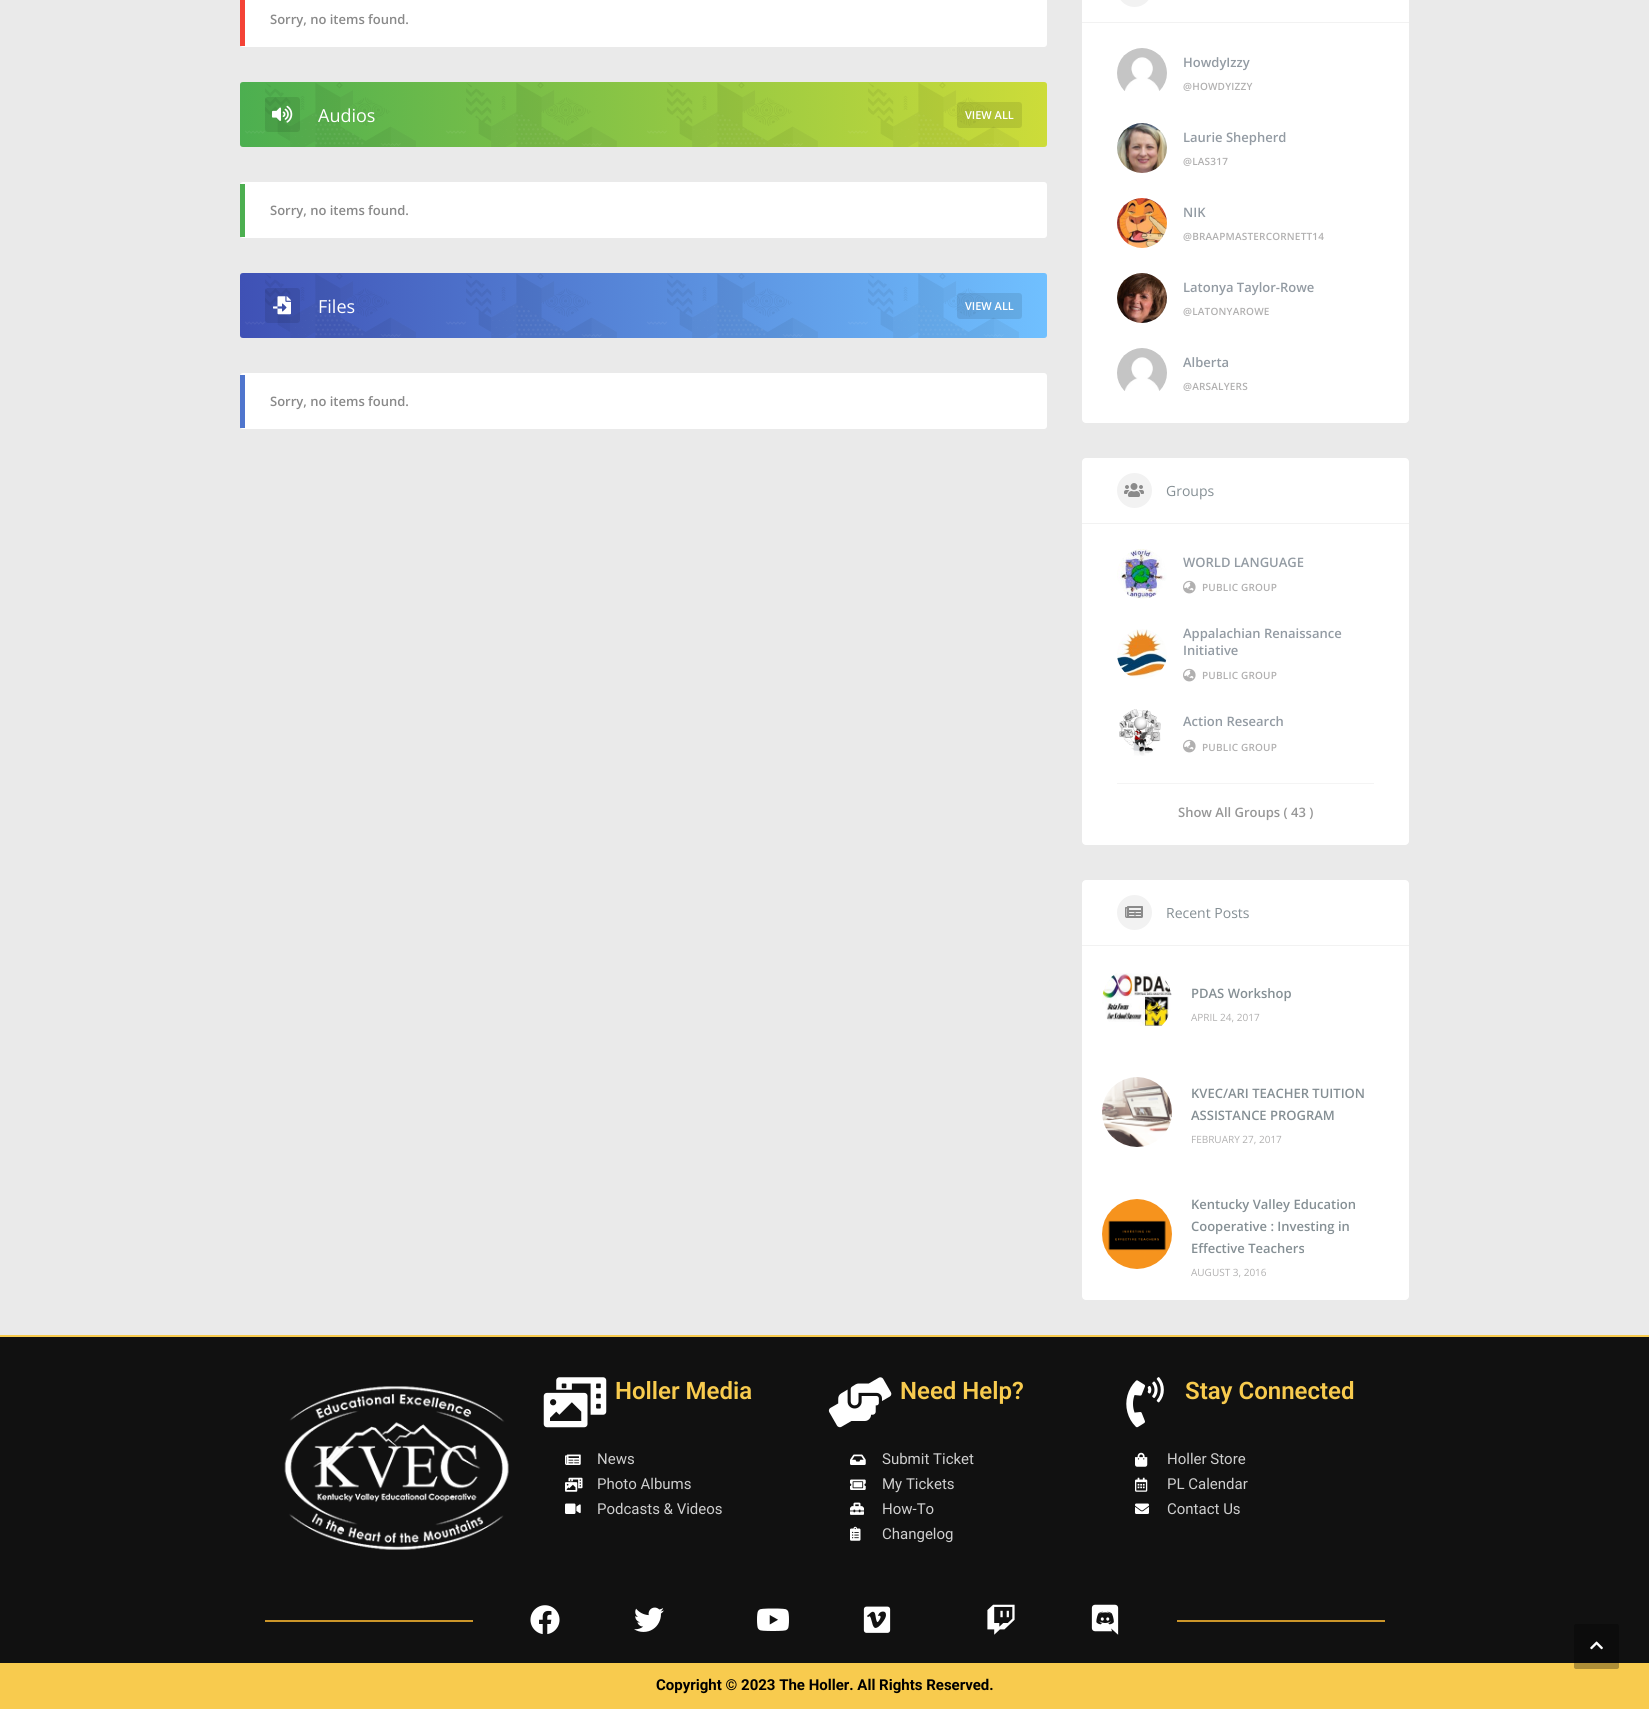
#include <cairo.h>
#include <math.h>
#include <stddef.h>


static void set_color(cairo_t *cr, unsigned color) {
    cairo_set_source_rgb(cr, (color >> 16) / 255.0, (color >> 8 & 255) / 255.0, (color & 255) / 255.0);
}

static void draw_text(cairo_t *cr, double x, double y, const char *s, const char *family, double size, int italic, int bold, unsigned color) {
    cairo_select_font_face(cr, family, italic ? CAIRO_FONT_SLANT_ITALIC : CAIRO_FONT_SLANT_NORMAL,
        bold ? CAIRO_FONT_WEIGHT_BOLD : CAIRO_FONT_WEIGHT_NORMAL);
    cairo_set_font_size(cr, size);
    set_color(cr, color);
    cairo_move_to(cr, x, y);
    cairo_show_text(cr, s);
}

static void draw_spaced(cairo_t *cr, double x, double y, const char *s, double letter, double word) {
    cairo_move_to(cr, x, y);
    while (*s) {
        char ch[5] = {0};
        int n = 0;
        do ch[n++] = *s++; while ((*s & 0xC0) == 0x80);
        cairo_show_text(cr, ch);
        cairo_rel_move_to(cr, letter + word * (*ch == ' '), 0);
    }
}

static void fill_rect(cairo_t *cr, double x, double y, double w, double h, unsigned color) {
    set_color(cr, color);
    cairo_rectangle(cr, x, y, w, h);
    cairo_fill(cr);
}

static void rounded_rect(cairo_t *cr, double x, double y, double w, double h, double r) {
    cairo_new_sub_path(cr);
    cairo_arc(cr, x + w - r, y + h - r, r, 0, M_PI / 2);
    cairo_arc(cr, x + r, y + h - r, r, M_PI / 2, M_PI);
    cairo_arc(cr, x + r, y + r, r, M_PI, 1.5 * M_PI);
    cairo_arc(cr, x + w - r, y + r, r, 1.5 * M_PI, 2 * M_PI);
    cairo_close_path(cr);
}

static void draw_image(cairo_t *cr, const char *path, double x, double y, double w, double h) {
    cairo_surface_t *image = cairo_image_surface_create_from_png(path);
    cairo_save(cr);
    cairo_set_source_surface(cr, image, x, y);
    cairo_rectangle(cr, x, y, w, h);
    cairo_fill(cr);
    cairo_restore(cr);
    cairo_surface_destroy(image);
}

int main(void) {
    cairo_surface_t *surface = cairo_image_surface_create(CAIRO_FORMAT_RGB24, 1649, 1709);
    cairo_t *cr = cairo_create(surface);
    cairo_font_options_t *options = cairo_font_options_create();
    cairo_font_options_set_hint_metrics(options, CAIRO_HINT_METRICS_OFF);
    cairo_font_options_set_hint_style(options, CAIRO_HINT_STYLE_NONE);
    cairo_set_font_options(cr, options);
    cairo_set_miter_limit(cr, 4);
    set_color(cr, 0xEAEAEA);
    cairo_paint(cr);
    set_color(cr, 0xFFFFFF);
    rounded_rect(cr, 240, -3, 807, 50, 3);
    cairo_fill(cr);
    fill_rect(cr, 240, 0, 5, 46, 0xF44336);
    draw_text(cr, 270, 24, "Sorry, no items found.", "Open Sans SemiBold", 13, 0, 0, 0x898989);
    draw_image(cr, "assets/img1.png", 240, 82, 807, 65);
    cairo_set_source_rgba(cr, 0, 0, 0, 0.1);
    rounded_rect(cr, 265, 97, 35, 35, 3);
    cairo_fill(cr);
    draw_image(cr, "assets/img2.png", 272, 105, 21, 18);
    draw_text(cr, 318, 122, "Audios", "Open Sans", 18, 0, 0, 0xFFFFFF);
    cairo_set_source_rgba(cr, 0, 0, 0, 0.1);
    rounded_rect(cr, 957, 102, 65, 26, 3);
    cairo_fill(cr);
    draw_text(cr, 965, 119, "VIEW ALL", "Open Sans SemiBold", 11, 0, 0, 0xFFFFFF);
    rounded_rect(cr, 240, 182, 807, 56, 3);
    cairo_fill(cr);
    fill_rect(cr, 240, 184, 5, 53, 0x4CAF50);
    draw_text(cr, 270, 215, "Sorry, no items found.", "Open Sans SemiBold", 13, 0, 0, 0x898989);
    draw_image(cr, "assets/img3.png", 240, 273, 807, 65);
    cairo_set_source_rgba(cr, 0, 0, 0, 0.1);
    rounded_rect(cr, 265, 288, 35, 35, 3);
    cairo_fill(cr);
    draw_image(cr, "assets/img4.png", 273, 296, 18, 19);
    draw_text(cr, 318, 313, "Files", "Open Sans", 18, 0, 0, 0xFFFFFF);
    cairo_set_source_rgba(cr, 0, 0, 0, 0.1);
    rounded_rect(cr, 957, 293, 65, 26, 3);
    cairo_fill(cr);
    draw_text(cr, 965, 310, "VIEW ALL", "Open Sans SemiBold", 11, 0, 0, 0xFFFFFF);
    rounded_rect(cr, 240, 373, 807, 56, 3);
    cairo_fill(cr);
    fill_rect(cr, 240, 375, 5, 53, 0x4F75CD);
    draw_text(cr, 270, 406, "Sorry, no items found.", "Open Sans SemiBold", 13, 0, 0, 0x898989);
    set_color(cr, 0xFFFFFF);
    rounded_rect(cr, 1082, -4, 327, 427, 4);
    cairo_fill(cr);
    fill_rect(cr, 1082, 22, 327, 1, 0xF2F2F2);
    rounded_rect(cr, 1117, -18, 35, 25, 17.5);
    cairo_fill(cr);
    draw_image(cr, "assets/img5.png", 1117, 48, 50, 43);
    draw_text(cr, 1183, 67, "HowdyIzzy", "Open Sans SemiBold", 13, 0, 0, 0x939BA3);
    cairo_set_font_size(cr, 10);
    set_color(cr, 0xB1B0B0);
    draw_spaced(cr, 1183, 90, "@HOWDYIZZY", 0.2, 0);
    draw_image(cr, "assets/img6.png", 1117, 123, 50, 50);
    draw_text(cr, 1183, 142, "Laurie Shepherd", "Open Sans SemiBold", 13, 0, 0, 0x939BA3);
    cairo_set_font_size(cr, 10);
    set_color(cr, 0xB1B0B0);
    draw_spaced(cr, 1183, 165, "@LAS317", 0.2, 0);
    draw_image(cr, "assets/img7.png", 1117, 198, 50, 50);
    draw_text(cr, 1183, 217, "NIK", "Open Sans SemiBold", 13, 0, 0, 0x939BA3);
    cairo_set_font_size(cr, 10);
    set_color(cr, 0xB1B0B0);
    draw_spaced(cr, 1183, 240, "@BRAAPMASTERCORNETT14", 0.2, 0);
    draw_image(cr, "assets/img8.png", 1117, 273, 50, 50);
    draw_text(cr, 1183, 292, "Latonya Taylor-Rowe", "Open Sans SemiBold", 13, 0, 0, 0x939BA3);
    cairo_set_font_size(cr, 10);
    set_color(cr, 0xB1B0B0);
    draw_spaced(cr, 1183, 315, "@LATONYAROWE", 0.2, 0);
    draw_image(cr, "assets/img9.png", 1117, 348, 50, 43);
    draw_text(cr, 1183, 367, "Alberta", "Open Sans SemiBold", 13, 0, 0, 0x939BA3);
    cairo_set_font_size(cr, 10);
    set_color(cr, 0xB1B0B0);
    draw_spaced(cr, 1183, 390, "@ARSALYERS", 0.2, 0);
    set_color(cr, 0xFFFFFF);
    rounded_rect(cr, 1082, 458, 327, 387, 4);
    cairo_fill(cr);
    fill_rect(cr, 1082, 523, 327, 1, 0xF2F2F2);
    cairo_arc(cr, 1134.5, 490.5, 17.5, 0, 2 * M_PI);
    cairo_fill(cr);
    draw_image(cr, "assets/img10.png", 1124, 483, 20, 14);
    draw_text(cr, 1166, 496, "Groups", "Open Sans", 14, 0, 0, 0x858F94);
    draw_image(cr, "assets/img11.png", 1117, 549, 50, 50);
    draw_text(cr, 1183, 567, "WORLD LANGUAGE", "Open Sans SemiBold", 13, 0, 0, 0x939BA3);
    draw_image(cr, "assets/img12.png", 1183, 580, 13, 14);
    cairo_set_font_size(cr, 10);
    set_color(cr, 0xB1B0B0);
    draw_spaced(cr, 1202, 591, "PUBLIC GROUP", 0.2, 0);
    draw_image(cr, "assets/img13.png", 1117, 629, 50, 50);
    draw_text(cr, 1183, 638, "Appalachian Renaissance", "Open Sans SemiBold", 13, 0, 0, 0x939BA3);
    draw_text(cr, 1183, 655, "Initiative", "Open Sans SemiBold", 13, 0, 0, 0x939BA3);
    draw_image(cr, "assets/img12.png", 1183, 668, 13, 14);
    cairo_set_font_size(cr, 10);
    set_color(cr, 0xB1B0B0);
    draw_spaced(cr, 1202, 679, "PUBLIC GROUP", 0.2, 0);
    draw_image(cr, "assets/img14.png", 1119, 709, 42, 47);
    draw_text(cr, 1183, 726, "Action Research", "Open Sans SemiBold", 13, 0, 0, 0x939BA3);
    draw_image(cr, "assets/img12.png", 1183, 739, 13, 14);
    cairo_set_font_size(cr, 10);
    set_color(cr, 0xB1B0B0);
    draw_spaced(cr, 1202, 751, "PUBLIC GROUP", 0.2, 0);
    fill_rect(cr, 1117, 783, 257, 1, 0xF4F4F4);
    draw_text(cr, 1178, 817, "Show All Groups ( 43 )", "Open Sans SemiBold", 13, 0, 0, 0x969696);
    set_color(cr, 0xFFFFFF);
    rounded_rect(cr, 1082, 880, 327, 420, 4);
    cairo_fill(cr);
    fill_rect(cr, 1082, 945, 327, 1, 0xF2F2F2);
    cairo_arc(cr, 1134.5, 912.5, 17.5, 0, 2 * M_PI);
    cairo_fill(cr);
    draw_image(cr, "assets/img15.png", 1125, 906, 18, 12);
    draw_text(cr, 1166, 918, "Recent Posts", "Open Sans", 14, 0, 0, 0x858F94);
    draw_image(cr, "assets/img16.png", 1102, 973, 70, 54);
    draw_text(cr, 1191, 998, "PDAS Workshop", "Open Sans SemiBold", 13, 0, 0, 0x858F94);
    draw_text(cr, 1191, 1021, "APRIL 24, 2017", "Open Sans", 10, 0, 0, 0xB1B0B0);
    draw_image(cr, "assets/img17.png", 1102, 1077, 70, 70);
    draw_text(cr, 1191, 1098, "KVEC/ARI TEACHER TUITION", "Open Sans SemiBold", 13, 0, 0, 0x858F94);
    draw_text(cr, 1191, 1120, "ASSISTANCE PROGRAM", "Open Sans SemiBold", 13, 0, 0, 0x858F94);
    draw_text(cr, 1191, 1143, "FEBRUARY 27, 2017", "Open Sans", 10, 0, 0, 0xB1B0B0);
    draw_image(cr, "assets/img18.png", 1102, 1199, 70, 70);
    draw_text(cr, 1191, 1209, "Kentucky Valley Education", "Open Sans SemiBold", 13, 0, 0, 0x858F94);
    draw_text(cr, 1191, 1231, "Cooperative : Investing in", "Open Sans SemiBold", 13, 0, 0, 0x858F94);
    draw_text(cr, 1191, 1253, "Effective Teachers", "Open Sans SemiBold", 13, 0, 0, 0x858F94);
    draw_text(cr, 1191, 1276, "AUGUST 3, 2016", "Open Sans", 10, 0, 0, 0xB1B0B0);
    fill_rect(cr, 0, 1337, 1649, 326, 0x111111);
    fill_rect(cr, 0, 1663, 1649, 46, 0xF8CB4E);
    cairo_set_source_rgba(cr, 0, 0, 0, 0.3);
    rounded_rect(cr, 1574, 1624, 45, 45, 2);
    cairo_fill(cr);
    draw_image(cr, "assets/img19.png", 1590, 1641, 13, 9);
    fill_rect(cr, 0, 1335, 1649, 2, 0xF8CB4E);
    draw_image(cr, "assets/img20.png", 284, 1386, 225, 164);
    draw_image(cr, "assets/img21.png", 543, 1377, 64, 51);
    draw_text(cr, 615, 1399, "Holler Media", "Roboto SemiBold", 24, 0, 0, 0xF8CB4E);
    draw_image(cr, "assets/img22.png", 565, 1454, 16, 11);
    draw_text(cr, 597, 1464, "News", "Roboto", 15, 0, 0, 0xCFCFCF);
    draw_image(cr, "assets/img23.png", 565, 1477, 18, 15);
    draw_text(cr, 597, 1489, "Photo Albums", "Roboto", 15, 0, 0, 0xCFCFCF);
    draw_image(cr, "assets/img24.png", 565, 1503, 16, 11);
    draw_text(cr, 597, 1514, "Podcasts & Videos", "Roboto", 15, 0, 0, 0xCFCFCF);
    draw_image(cr, "assets/img25.png", 828, 1377, 64, 51);
    draw_text(cr, 900, 1399, "Need Help?", "Roboto SemiBold", 24, 0, 0, 0xF8CB4E);
    draw_image(cr, "assets/img26.png", 850, 1454, 16, 11);
    draw_text(cr, 882, 1464, "Submit Ticket", "Roboto", 15, 0, 0, 0xCFCFCF);
    draw_image(cr, "assets/img27.png", 850, 1479, 16, 11);
    draw_text(cr, 882, 1489, "My Tickets", "Roboto", 15, 0, 0, 0xCFCFCF);
    draw_image(cr, "assets/img28.png", 850, 1502, 14, 13);
    draw_text(cr, 882, 1514, "How-To", "Roboto", 15, 0, 0, 0xCFCFCF);
    draw_image(cr, "assets/img29.png", 850, 1526, 11, 15);
    draw_text(cr, 882, 1539, "Changelog", "Roboto", 15, 0, 0, 0xCFCFCF);
    draw_image(cr, "assets/img30.png", 1126, 1377, 38, 51);
    draw_text(cr, 1185, 1399, "Stay Connected", "Roboto SemiBold", 24, 0, 0, 0xF8CB4E);
    draw_image(cr, "assets/img31.png", 1135, 1452, 13, 15);
    draw_text(cr, 1167, 1464, "Holler Store", "Roboto", 15, 0, 0, 0xCFCFCF);
    draw_image(cr, "assets/img32.png", 1135, 1477, 13, 15);
    draw_text(cr, 1167, 1489, "PL Calendar", "Roboto", 15, 0, 0, 0xCFCFCF);
    draw_image(cr, "assets/img33.png", 1135, 1503, 14, 11);
    draw_text(cr, 1167, 1514, "Contact Us", "Roboto", 15, 0, 0, 0xCFCFCF);
    fill_rect(cr, 265, 1620, 208, 2, 0xCC962A);
    draw_image(cr, "assets/img34.png", 530, 1605, 30, 30);
    draw_image(cr, "assets/img35.png", 634, 1607, 30, 25);
    draw_image(cr, "assets/img36.png", 757, 1608, 32, 23);
    draw_image(cr, "assets/img37.png", 863, 1606, 28, 27);
    draw_image(cr, "assets/img38.png", 987, 1604, 28, 31);
    draw_image(cr, "assets/img39.png", 1091, 1604, 28, 31);
    fill_rect(cr, 1177, 1620, 208, 2, 0xCC962A);
    draw_text(cr, 656, 1690, "Copyright © 2023 The Holler. All Rights Reserved.", "Roboto", 15, 0, 1, 0x000000);
    cairo_surface_write_to_png(surface, "output.png");
    cairo_font_options_destroy(options);
    cairo_destroy(cr);
    cairo_surface_destroy(surface);
    return 0;
}
